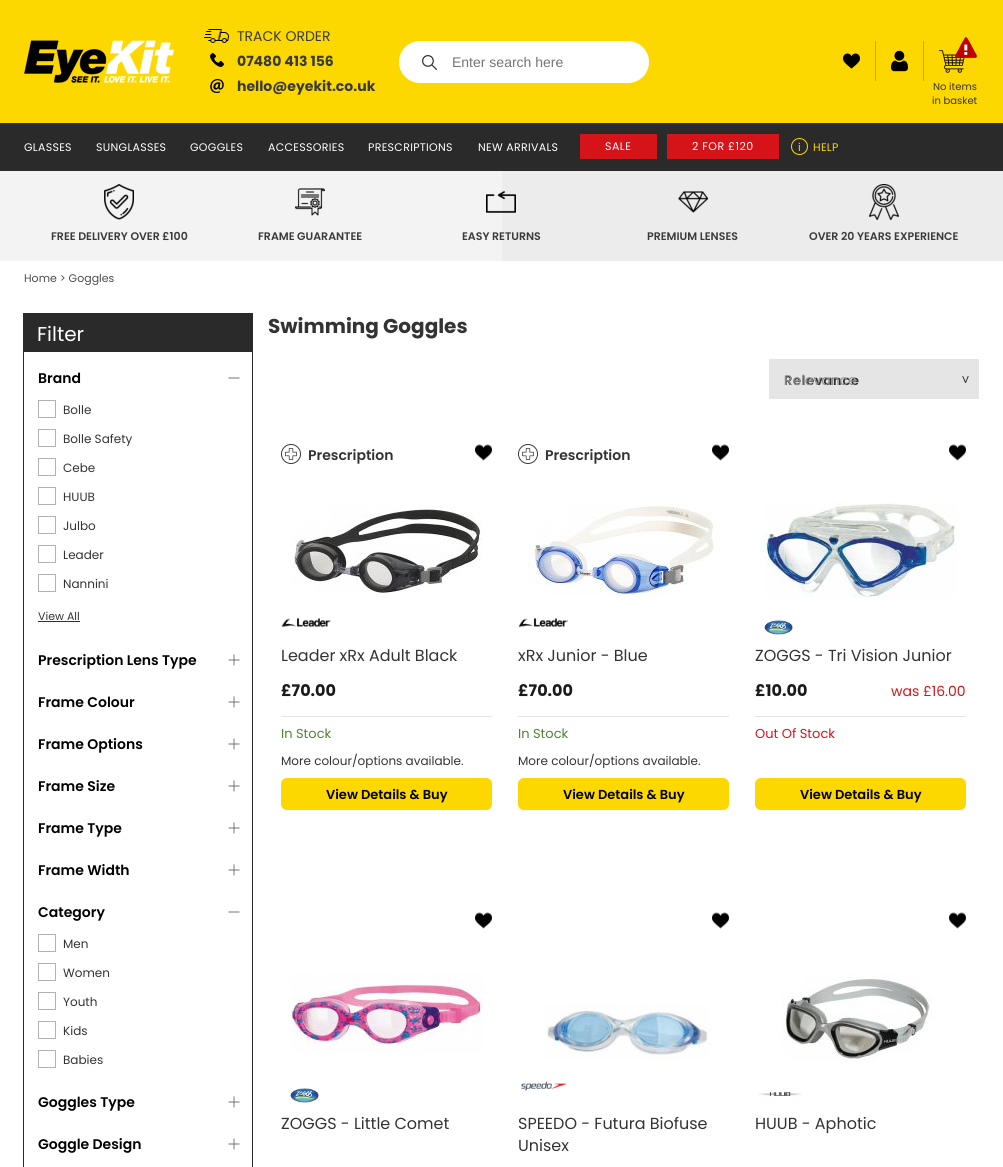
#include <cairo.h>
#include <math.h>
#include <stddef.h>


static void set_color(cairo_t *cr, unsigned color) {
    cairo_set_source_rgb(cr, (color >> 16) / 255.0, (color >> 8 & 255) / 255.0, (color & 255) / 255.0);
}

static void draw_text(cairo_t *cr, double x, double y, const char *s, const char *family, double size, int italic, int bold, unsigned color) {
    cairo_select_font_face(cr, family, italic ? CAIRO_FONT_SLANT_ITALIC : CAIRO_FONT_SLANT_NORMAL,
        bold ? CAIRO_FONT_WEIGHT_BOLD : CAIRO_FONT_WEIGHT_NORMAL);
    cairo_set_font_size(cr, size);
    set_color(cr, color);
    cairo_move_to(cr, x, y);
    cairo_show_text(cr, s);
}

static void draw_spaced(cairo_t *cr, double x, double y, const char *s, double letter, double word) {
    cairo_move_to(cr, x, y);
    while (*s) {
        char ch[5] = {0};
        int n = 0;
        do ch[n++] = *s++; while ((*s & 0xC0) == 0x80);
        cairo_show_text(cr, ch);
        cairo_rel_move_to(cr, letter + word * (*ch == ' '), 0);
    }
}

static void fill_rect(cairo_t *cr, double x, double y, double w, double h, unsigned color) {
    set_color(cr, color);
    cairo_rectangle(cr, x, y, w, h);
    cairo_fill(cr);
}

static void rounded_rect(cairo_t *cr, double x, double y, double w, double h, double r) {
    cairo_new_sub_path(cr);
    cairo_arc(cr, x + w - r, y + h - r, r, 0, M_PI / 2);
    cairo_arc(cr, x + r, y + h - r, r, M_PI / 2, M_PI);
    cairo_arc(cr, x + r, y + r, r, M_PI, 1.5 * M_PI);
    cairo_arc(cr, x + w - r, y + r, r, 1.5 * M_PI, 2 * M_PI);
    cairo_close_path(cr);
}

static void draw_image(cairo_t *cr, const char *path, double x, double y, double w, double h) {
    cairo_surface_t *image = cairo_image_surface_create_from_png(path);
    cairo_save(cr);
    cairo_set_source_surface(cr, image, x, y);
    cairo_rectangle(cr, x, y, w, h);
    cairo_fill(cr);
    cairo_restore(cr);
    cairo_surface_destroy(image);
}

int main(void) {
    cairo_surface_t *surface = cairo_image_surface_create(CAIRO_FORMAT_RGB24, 1003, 1167);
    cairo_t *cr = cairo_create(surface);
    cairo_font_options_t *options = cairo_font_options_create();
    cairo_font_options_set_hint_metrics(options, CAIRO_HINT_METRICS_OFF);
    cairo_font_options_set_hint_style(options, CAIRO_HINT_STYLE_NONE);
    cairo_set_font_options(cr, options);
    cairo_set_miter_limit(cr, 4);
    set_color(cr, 0xFFFFFF);
    cairo_paint(cr);
    fill_rect(cr, 0, 0, 1003, 123, 0xFDD800);
    draw_image(cr, "assets/img1.png", 24, 40, 150, 43);
    draw_image(cr, "assets/img2.png", 204, 29, 25, 14);
    draw_text(cr, 237, 41, "TRACK ORDER", "Poppins", 14, 0, 0, 0x3A3A3A);
    draw_image(cr, "assets/img3.png", 210, 53, 14, 14);
    draw_text(cr, 237, 66, "07480 413 156", "Poppins", 14, 0, 1, 0x3A3A3A);
    draw_image(cr, "assets/img4.png", 210, 79, 14, 14);
    draw_text(cr, 237, 91, "hello@eyekit.co.uk", "Poppins", 14, 0, 1, 0x3A3A3A);
    set_color(cr, 0xFFFFFF);
    rounded_rect(cr, 399.5, 41.5, 249, 41, 20.5);
    cairo_fill_preserve(cr);
    cairo_set_line_width(cr, 1);
    cairo_stroke(cr);
    draw_image(cr, "assets/img5.png", 422, 55, 15, 15);
    draw_text(cr, 452, 67, "Enter search here", "Liberation Sans", 14, 0, 0, 0x757575);
    fill_rect(cr, 875, 41, 1, 40, 0xC5A900);
    draw_image(cr, "assets/img6.png", 843, 53, 17, 16);
    fill_rect(cr, 923, 41, 1, 40, 0xC5A900);
    draw_image(cr, "assets/img7.png", 891, 50, 17, 22);
    draw_image(cr, "assets/img8.png", 939, 50, 26, 23);
    draw_image(cr, "assets/img9.png", 955, 37, 22, 21);
    draw_text(cr, 933, 90, "No items", "Poppins", 10, 0, 0, 0x333333);
    draw_text(cr, 932, 104, "in basket", "Poppins", 10, 0, 0, 0x333333);
    fill_rect(cr, 0, 123, 1003, 48, 0x2A2A2A);
    cairo_set_font_size(cr, 11);
    set_color(cr, 0xFFFFFF);
    draw_spaced(cr, 24, 151, "GLASSES", 0.3, 0);
    draw_spaced(cr, 96, 151, "SUNGLASSES", 0.3, 0);
    draw_spaced(cr, 190, 151, "GOGGLES", 0.3, 0);
    draw_spaced(cr, 268, 151, "ACCESSORIES", 0.3, 0);
    draw_spaced(cr, 368, 151, "PRESCRIPTIONS", 0.3, 0);
    draw_spaced(cr, 478, 151, "NEW ARRIVALS", 0.3, 0);
    fill_rect(cr, 580, 134, 77, 25, 0xD61318);
    set_color(cr, 0xFFFFFF);
    draw_spaced(cr, 605, 150, "SALE", 0.5, 0);
    fill_rect(cr, 667, 134, 112, 25, 0xD61318);
    set_color(cr, 0xFFFFFF);
    draw_spaced(cr, 692, 150, "2 FOR £120", 0.5, 0);
    cairo_new_path(cr);
    cairo_arc(cr, 799.5, 146.5, 8, 0, 2 * M_PI);
    set_color(cr, 0xFDD800);
    cairo_stroke(cr);
    draw_spaced(cr, 798, 151, "i", 0.3, 0);
    draw_spaced(cr, 813, 151, "HELP", 0.3, 0);
    fill_rect(cr, 0, 171, 502, 90, 0xF3F3F3);
    fill_rect(cr, 502, 171, 501, 90, 0xECECEC);
    draw_image(cr, "assets/img10.png", 104, 184, 30, 36);
    draw_text(cr, 51, 240, "FREE DELIVERY OVER £100", "Poppins SemiBold", 11, 0, 0, 0x3A3A3A);
    draw_image(cr, "assets/img11.png", 295, 188, 30, 28);
    draw_text(cr, 258, 240, "FRAME GUARANTEE", "Poppins SemiBold", 11, 0, 0, 0x3A3A3A);
    draw_image(cr, "assets/img12.png", 486, 191, 30, 22);
    draw_text(cr, 462, 240, "EASY RETURNS", "Poppins SemiBold", 11, 0, 0, 0x3A3A3A);
    draw_image(cr, "assets/img13.png", 678, 191, 30, 22);
    draw_text(cr, 647, 240, "PREMIUM LENSES", "Poppins SemiBold", 11, 0, 0, 0x3A3A3A);
    draw_image(cr, "assets/img14.png", 869, 184, 30, 36);
    draw_text(cr, 809, 240, "OVER 20 YEARS EXPERIENCE", "Poppins SemiBold", 11, 0, 0, 0x3A3A3A);
    draw_text(cr, 24, 282, "Home > Goggles", "Poppins", 11, 0, 0, 0x4D4D4D);
    fill_rect(cr, 23, 313, 230, 38, 0x2A2A2A);
    draw_text(cr, 37, 341, "Filter", "Poppins", 20, 0, 0, 0xFFFFFF);
    cairo_rectangle(cr, 23.5, 351.5, 229, 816);
    set_color(cr, 0x2A2A2A);
    cairo_stroke(cr);
    draw_image(cr, "assets/img15.png", 228, 377, 12, 2);
    draw_text(cr, 38, 383, "Brand", "Poppins SemiBold", 14, 0, 0, 0x000000);
    cairo_rectangle(cr, 38.5, 400.5, 17, 17);
    set_color(cr, 0xB2B2B2);
    cairo_stroke(cr);
    draw_text(cr, 63, 414, "Bolle", "Poppins", 12, 0, 0, 0x333333);
    cairo_rectangle(cr, 38.5, 429.5, 17, 17);
    set_color(cr, 0xB2B2B2);
    cairo_stroke(cr);
    draw_text(cr, 63, 443, "Bolle Safety", "Poppins", 12, 0, 0, 0x333333);
    cairo_rectangle(cr, 38.5, 458.5, 17, 17);
    set_color(cr, 0xB2B2B2);
    cairo_stroke(cr);
    draw_text(cr, 63, 472, "Cebe", "Poppins", 12, 0, 0, 0x333333);
    cairo_rectangle(cr, 38.5, 487.5, 17, 17);
    set_color(cr, 0xB2B2B2);
    cairo_stroke(cr);
    draw_text(cr, 63, 501, "HUUB", "Poppins", 12, 0, 0, 0x333333);
    cairo_rectangle(cr, 38.5, 516.5, 17, 17);
    set_color(cr, 0xB2B2B2);
    cairo_stroke(cr);
    draw_text(cr, 63, 530, "Julbo", "Poppins", 12, 0, 0, 0x333333);
    cairo_rectangle(cr, 38.5, 545.5, 17, 17);
    set_color(cr, 0xB2B2B2);
    cairo_stroke(cr);
    draw_text(cr, 63, 559, "Leader", "Poppins", 12, 0, 0, 0x333333);
    cairo_rectangle(cr, 38.5, 574.5, 17, 17);
    set_color(cr, 0xB2B2B2);
    cairo_stroke(cr);
    draw_text(cr, 63, 588, "Nannini", "Poppins", 12, 0, 0, 0x333333);
    draw_text(cr, 38, 620, "View All", "Poppins", 11, 0, 0, 0x333333);
    fill_rect(cr, 38, 621, 42, 1, 0x333333);
    draw_image(cr, "assets/img16.png", 228, 654, 12, 12);
    draw_text(cr, 38, 665, "Prescription Lens Type", "Poppins SemiBold", 14, 0, 0, 0x000000);
    draw_image(cr, "assets/img16.png", 228, 696, 12, 12);
    draw_text(cr, 38, 707, "Frame Colour", "Poppins SemiBold", 14, 0, 0, 0x000000);
    draw_image(cr, "assets/img16.png", 228, 738, 12, 12);
    draw_text(cr, 38, 749, "Frame Options", "Poppins SemiBold", 14, 0, 0, 0x000000);
    draw_image(cr, "assets/img16.png", 228, 780, 12, 12);
    draw_text(cr, 38, 791, "Frame Size", "Poppins SemiBold", 14, 0, 0, 0x000000);
    draw_image(cr, "assets/img16.png", 228, 822, 12, 12);
    draw_text(cr, 38, 833, "Frame Type", "Poppins SemiBold", 14, 0, 0, 0x000000);
    draw_image(cr, "assets/img16.png", 228, 864, 12, 12);
    draw_text(cr, 38, 875, "Frame Width", "Poppins SemiBold", 14, 0, 0, 0x000000);
    draw_image(cr, "assets/img15.png", 228, 911, 12, 2);
    draw_text(cr, 38, 917, "Category", "Poppins SemiBold", 14, 0, 0, 0x000000);
    cairo_rectangle(cr, 38.5, 934.5, 17, 17);
    set_color(cr, 0xB2B2B2);
    cairo_stroke(cr);
    draw_text(cr, 63, 948, "Men", "Poppins", 12, 0, 0, 0x333333);
    cairo_rectangle(cr, 38.5, 963.5, 17, 17);
    set_color(cr, 0xB2B2B2);
    cairo_stroke(cr);
    draw_text(cr, 63, 977, "Women", "Poppins", 12, 0, 0, 0x333333);
    cairo_rectangle(cr, 38.5, 992.5, 17, 17);
    set_color(cr, 0xB2B2B2);
    cairo_stroke(cr);
    draw_text(cr, 63, 1006, "Youth", "Poppins", 12, 0, 0, 0x333333);
    cairo_rectangle(cr, 38.5, 1021.5, 17, 17);
    set_color(cr, 0xB2B2B2);
    cairo_stroke(cr);
    draw_text(cr, 63, 1035, "Kids", "Poppins", 12, 0, 0, 0x333333);
    cairo_rectangle(cr, 38.5, 1050.5, 17, 17);
    set_color(cr, 0xB2B2B2);
    cairo_stroke(cr);
    draw_text(cr, 63, 1064, "Babies", "Poppins", 12, 0, 0, 0x333333);
    draw_image(cr, "assets/img16.png", 228, 1096, 12, 12);
    draw_text(cr, 38, 1107, "Goggles Type", "Poppins SemiBold", 14, 0, 0, 0x000000);
    draw_image(cr, "assets/img16.png", 228, 1138, 12, 12);
    draw_text(cr, 38, 1149, "Goggle Design", "Poppins SemiBold", 14, 0, 0, 0x000000);
    draw_text(cr, 268, 333, "Swimming Goggles", "Poppins", 20, 0, 1, 0x333333);
    fill_rect(cr, 769, 359, 210, 40, 0xE5E5E5);
    draw_image(cr, "assets/img17.png", 962, 376, 7, 7);
    cairo_select_font_face(cr, "Poppins SemiBold", CAIRO_FONT_SLANT_NORMAL, CAIRO_FONT_WEIGHT_NORMAL);
    cairo_set_font_size(cr, 13);
    set_color(cr, 0x333333);
    draw_spaced(cr, 784, 385, "Relevance", 0.75, 0);
    draw_text(cr, 784, 385, "Relevance", "Poppins", 14, 0, 0, 0x8F8F8F);
    draw_image(cr, "assets/img18.png", 281, 444, 20, 20);
    draw_text(cr, 308, 460, "Prescription", "Poppins SemiBold", 14, 0, 0, 0x333333);
    draw_image(cr, "assets/img19.png", 475, 444, 17, 17);
    draw_image(cr, "assets/img20.png", 291, 505, 192, 88);
    draw_image(cr, "assets/img21.png", 281, 618, 50, 10);
    draw_text(cr, 281, 661, "Leader xRx Adult Black", "Poppins", 16, 0, 0, 0x333333);
    draw_text(cr, 281, 696, "£70.00", "Poppins", 16, 0, 1, 0x1A1A1A);
    fill_rect(cr, 281, 716, 211, 1, 0xE5E5E5);
    draw_text(cr, 281, 738, "In Stock", "Poppins", 13, 0, 0, 0x508232);
    draw_text(cr, 281, 765, "More colour/options available.", "Poppins", 12, 0, 0, 0x333333);
    set_color(cr, 0xFDD800);
    rounded_rect(cr, 281.5, 778.5, 210, 31, 5.5);
    cairo_fill_preserve(cr);
    cairo_stroke(cr);
    draw_text(cr, 326, 799, "View Details & Buy", "Poppins SemiBold", 13, 0, 0, 0x000000);
    draw_image(cr, "assets/img18.png", 518, 444, 20, 20);
    draw_text(cr, 545, 460, "Prescription", "Poppins SemiBold", 14, 0, 0, 0x333333);
    draw_image(cr, "assets/img19.png", 712, 444, 17, 17);
    draw_image(cr, "assets/img22.png", 528, 505, 188, 90);
    draw_image(cr, "assets/img21.png", 518, 618, 50, 10);
    draw_text(cr, 518, 661, "xRx Junior - Blue", "Poppins", 16, 0, 0, 0x333333);
    draw_text(cr, 518, 696, "£70.00", "Poppins", 16, 0, 1, 0x1A1A1A);
    fill_rect(cr, 518, 716, 211, 1, 0xE5E5E5);
    draw_text(cr, 518, 738, "In Stock", "Poppins", 13, 0, 0, 0x508232);
    draw_text(cr, 518, 765, "More colour/options available.", "Poppins", 12, 0, 0, 0x333333);
    set_color(cr, 0xFDD800);
    rounded_rect(cr, 518.5, 778.5, 210, 31, 5.5);
    cairo_fill_preserve(cr);
    cairo_stroke(cr);
    draw_text(cr, 563, 799, "View Details & Buy", "Poppins SemiBold", 13, 0, 0, 0x000000);
    draw_image(cr, "assets/img19.png", 949, 444, 17, 17);
    draw_image(cr, "assets/img23.png", 765, 502, 192, 96);
    draw_image(cr, "assets/img24.png", 764, 620, 29, 15);
    draw_text(cr, 755, 661, "ZOGGS - Tri Vision Junior", "Poppins", 16, 0, 0, 0x333333);
    draw_text(cr, 755, 696, "£10.00", "Poppins", 16, 0, 1, 0x1A1A1A);
    draw_text(cr, 891, 696, "was £16.00", "Poppins", 14, 0, 0, 0xD61318);
    fill_rect(cr, 755, 716, 211, 1, 0xE5E5E5);
    draw_text(cr, 755, 738, "Out Of Stock", "Poppins", 13, 0, 0, 0xD61318);
    set_color(cr, 0xFDD800);
    rounded_rect(cr, 755.5, 778.5, 210, 31, 5.5);
    cairo_fill_preserve(cr);
    cairo_stroke(cr);
    draw_text(cr, 800, 799, "View Details & Buy", "Poppins SemiBold", 13, 0, 0, 0x000000);
    draw_image(cr, "assets/img19.png", 475, 912, 17, 17);
    draw_image(cr, "assets/img25.png", 291, 973, 192, 80);
    draw_image(cr, "assets/img24.png", 290, 1088, 29, 15);
    draw_text(cr, 281, 1129, "ZOGGS - Little Comet", "Poppins", 16, 0, 0, 0x333333);
    draw_image(cr, "assets/img19.png", 712, 912, 17, 17);
    draw_image(cr, "assets/img26.png", 544, 1004, 165, 55);
    draw_image(cr, "assets/img27.png", 521, 1081, 46, 10);
    draw_text(cr, 518, 1129, "SPEEDO - Futura Biofuse", "Poppins", 16, 0, 0, 0x333333);
    draw_text(cr, 518, 1151, "Unisex", "Poppins", 16, 0, 0, 0x333333);
    draw_image(cr, "assets/img19.png", 949, 912, 17, 17);
    draw_image(cr, "assets/img28.png", 781, 975, 152, 86);
    draw_image(cr, "assets/img29.png", 758, 1092, 44, 4);
    draw_text(cr, 755, 1129, "HUUB - Aphotic", "Poppins", 16, 0, 0, 0x333333);
    cairo_surface_write_to_png(surface, "output.png");
    cairo_font_options_destroy(options);
    cairo_destroy(cr);
    cairo_surface_destroy(surface);
    return 0;
}
